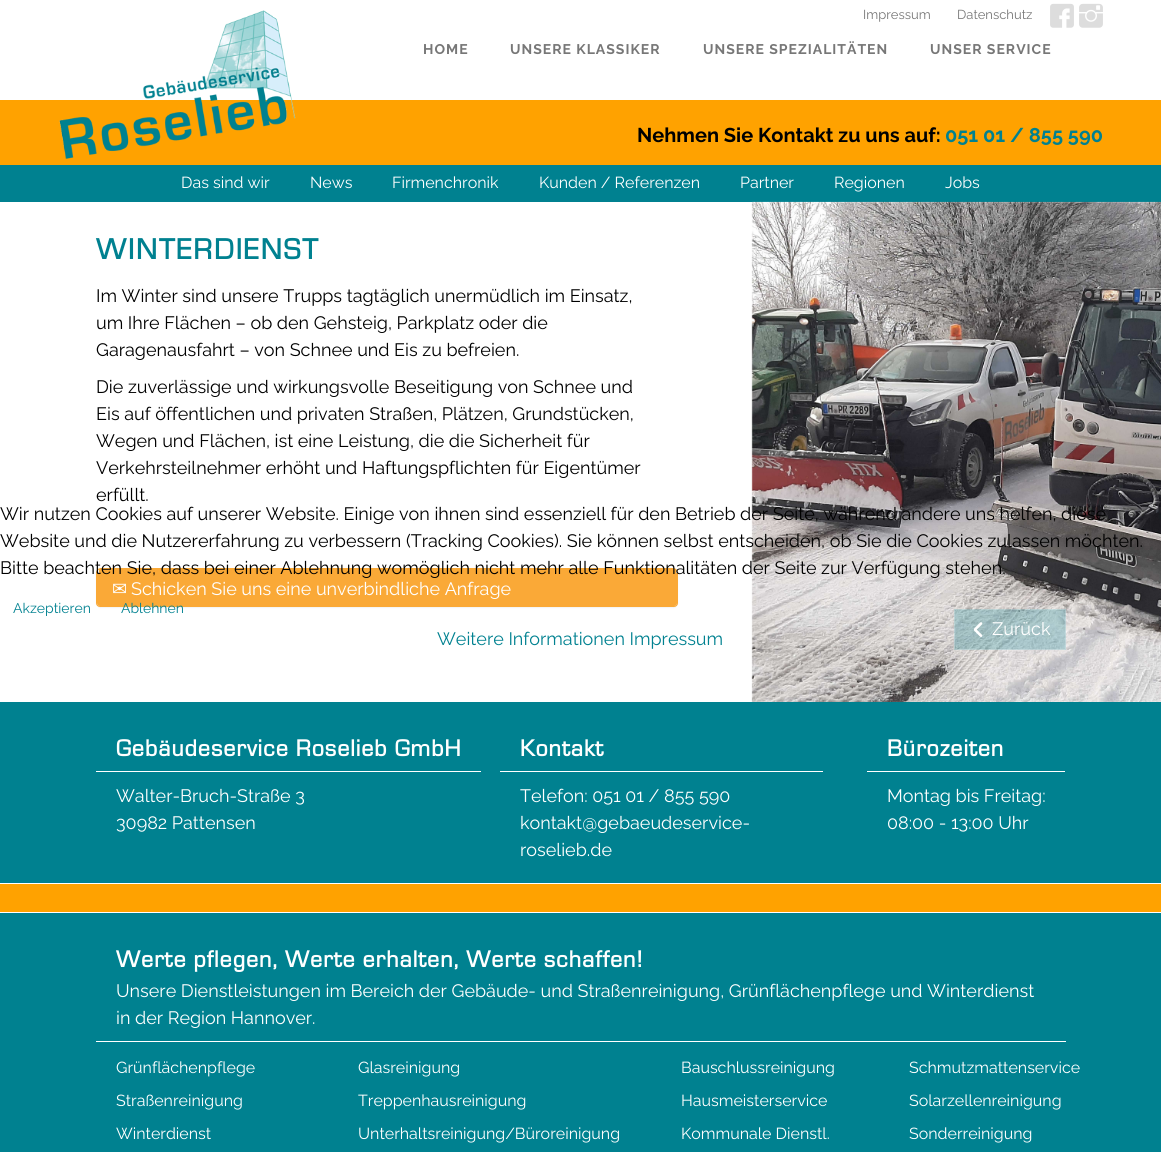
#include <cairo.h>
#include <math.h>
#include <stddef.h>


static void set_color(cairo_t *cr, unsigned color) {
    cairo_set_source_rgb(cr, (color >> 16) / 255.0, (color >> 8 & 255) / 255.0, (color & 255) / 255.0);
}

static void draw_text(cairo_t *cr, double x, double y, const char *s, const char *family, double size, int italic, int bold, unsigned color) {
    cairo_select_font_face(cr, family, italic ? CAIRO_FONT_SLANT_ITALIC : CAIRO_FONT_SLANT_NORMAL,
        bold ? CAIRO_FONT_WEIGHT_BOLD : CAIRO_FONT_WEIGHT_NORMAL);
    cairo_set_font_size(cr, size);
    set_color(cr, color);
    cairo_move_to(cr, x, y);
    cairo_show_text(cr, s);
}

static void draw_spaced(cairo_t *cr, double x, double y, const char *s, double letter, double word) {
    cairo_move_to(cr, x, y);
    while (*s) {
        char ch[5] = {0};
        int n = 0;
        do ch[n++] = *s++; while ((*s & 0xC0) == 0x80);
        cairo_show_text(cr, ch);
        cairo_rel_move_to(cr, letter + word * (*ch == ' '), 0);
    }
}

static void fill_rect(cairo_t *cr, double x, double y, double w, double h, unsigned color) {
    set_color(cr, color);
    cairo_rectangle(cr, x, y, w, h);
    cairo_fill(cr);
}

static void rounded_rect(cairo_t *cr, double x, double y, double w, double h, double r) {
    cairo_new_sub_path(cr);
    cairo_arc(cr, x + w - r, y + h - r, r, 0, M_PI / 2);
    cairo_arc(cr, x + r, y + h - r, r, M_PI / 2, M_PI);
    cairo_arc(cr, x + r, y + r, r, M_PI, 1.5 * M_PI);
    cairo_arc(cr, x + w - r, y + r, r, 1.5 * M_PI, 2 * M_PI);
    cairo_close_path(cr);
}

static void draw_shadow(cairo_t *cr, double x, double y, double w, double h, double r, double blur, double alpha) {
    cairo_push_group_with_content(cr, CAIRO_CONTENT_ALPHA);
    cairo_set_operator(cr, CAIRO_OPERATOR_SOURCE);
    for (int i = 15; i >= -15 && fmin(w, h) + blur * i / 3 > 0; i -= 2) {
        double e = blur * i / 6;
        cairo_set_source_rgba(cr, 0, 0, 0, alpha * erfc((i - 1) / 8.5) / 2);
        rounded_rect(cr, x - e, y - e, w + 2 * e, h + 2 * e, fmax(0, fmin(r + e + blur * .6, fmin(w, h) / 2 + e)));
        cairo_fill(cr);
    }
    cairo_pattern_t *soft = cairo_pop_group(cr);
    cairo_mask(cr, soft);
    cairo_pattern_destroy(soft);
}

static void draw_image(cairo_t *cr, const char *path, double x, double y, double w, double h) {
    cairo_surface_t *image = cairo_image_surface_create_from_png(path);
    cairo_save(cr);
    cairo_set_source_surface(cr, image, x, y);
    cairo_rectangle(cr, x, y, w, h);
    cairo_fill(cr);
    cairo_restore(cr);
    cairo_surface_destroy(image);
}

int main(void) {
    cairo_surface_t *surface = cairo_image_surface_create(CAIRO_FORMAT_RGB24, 1161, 1152);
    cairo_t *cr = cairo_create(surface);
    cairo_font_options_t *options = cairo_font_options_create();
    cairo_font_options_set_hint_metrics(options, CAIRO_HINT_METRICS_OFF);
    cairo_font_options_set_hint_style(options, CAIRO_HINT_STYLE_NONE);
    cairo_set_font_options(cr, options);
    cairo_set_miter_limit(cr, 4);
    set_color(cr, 0xFFFFFF);
    cairo_paint(cr);
    fill_rect(cr, 0, 100, 1161, 65, 0xFFA200);
    draw_image(cr, "assets/img1.png", 59, 10, 237, 149);
    draw_text(cr, 863, 19, "Impressum", "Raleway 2 Thin", 13, 0, 0, 0x777777);
    draw_text(cr, 957, 19, "Datenschutz", "Raleway 2 Thin", 13, 0, 0, 0x777777);
    draw_image(cr, "assets/img2.png", 1050, 3, 24, 25);
    draw_image(cr, "assets/img3.png", 1079, 3, 24, 25);
    cairo_select_font_face(cr, "Raleway Thin", CAIRO_FONT_SLANT_NORMAL, CAIRO_FONT_WEIGHT_NORMAL);
    cairo_set_font_size(cr, 14);
    draw_spaced(cr, 423, 54, "HOME", 1, 0);
    draw_spaced(cr, 510, 54, "UNSERE KLASSIKER", 1, 0);
    draw_spaced(cr, 703, 54, "UNSERE SPEZIALITÄTEN", 1, 0);
    draw_spaced(cr, 930, 54, "UNSER SERVICE", 1, 0);
    draw_text(cr, 637, 142, "Nehmen Sie Kontakt zu uns auf:", "Raleway Thin", 20, 0, 0, 0x000000);
    draw_text(cr, 945, 142, "051 01 / 855 590", "Raleway Thin", 20, 0, 0, 0x008190);
    fill_rect(cr, 0, 165, 1161, 37, 0x008190);
    draw_text(cr, 181, 188, "Das sind wir", "Raleway 2 Thin", 16, 0, 0, 0xFFFFFF);
    draw_text(cr, 310, 188, "News", "Raleway 2 Thin", 16, 0, 0, 0xFFFFFF);
    draw_text(cr, 392, 188, "Firmenchronik", "Raleway 2 Thin", 16, 0, 0, 0xFFFFFF);
    draw_text(cr, 539, 188, "Kunden / Referenzen", "Raleway 2 Thin", 16, 0, 0, 0xFFFFFF);
    draw_text(cr, 740, 188, "Partner", "Raleway 2 Thin", 16, 0, 0, 0xFFFFFF);
    draw_text(cr, 834, 188, "Regionen", "Raleway 2 Thin", 16, 0, 0, 0xFFFFFF);
    draw_text(cr, 945, 188, "Jobs", "Raleway 2 Thin", 16, 0, 0, 0xFFFFFF);
    cairo_select_font_face(cr, "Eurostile", CAIRO_FONT_SLANT_NORMAL, CAIRO_FONT_WEIGHT_BOLD);
    cairo_set_font_size(cr, 30);
    set_color(cr, 0x008190);
    draw_spaced(cr, 96, 259, "WINTERDIENST", 2, 0);
    draw_text(cr, 96, 302, "Im Winter sind unsere Trupps tagtäglich unermüdlich im Einsatz,", "Raleway 2 Thin", 18, 0, 0, 0x000000);
    draw_text(cr, 96, 329, "um Ihre Flächen – ob den Gehsteig, Parkplatz oder die", "Raleway 2 Thin", 18, 0, 0, 0x000000);
    draw_text(cr, 96, 356, "Garagenausfahrt – von Schnee und Eis zu befreien.", "Raleway 2 Thin", 18, 0, 0, 0x000000);
    draw_text(cr, 96, 393, "Die zuverlässige und wirkungsvolle Beseitigung von Schnee und", "Raleway 2 Thin", 18, 0, 0, 0x000000);
    draw_text(cr, 96, 420, "Eis auf öffentlichen und privaten Straßen, Plätzen, Grundstücken,", "Raleway 2 Thin", 18, 0, 0, 0x000000);
    draw_text(cr, 96, 447, "Wegen und Flächen, ist eine Leistung, die die Sicherheit für", "Raleway 2 Thin", 18, 0, 0, 0x000000);
    draw_text(cr, 96, 474, "Verkehrsteilnehmer erhöht und Haftungspflichten für Eigentümer", "Raleway 2 Thin", 18, 0, 0, 0x000000);
    draw_text(cr, 96, 501, "erfüllt.", "Raleway 2 Thin", 18, 0, 0, 0x000000);
    set_color(cr, 0x000000);
    draw_shadow(cr, 96, 569, 582, 39, 5, 0.5, 0.05);
    cairo_new_path(cr);
    cairo_move_to(cr, 101, 568.5);
    cairo_line_to(cr, 673, 568.5);
    cairo_curve_to(cr, 675.5, 568.5, 677.5, 570.5, 677.5, 573);
    cairo_line_to(cr, 677.5, 603);
    cairo_curve_to(cr, 677.5, 605, 676, 606.5, 674, 606.5);
    cairo_line_to(cr, 100, 606.5);
    cairo_curve_to(cr, 98, 606.5, 96.5, 605, 96.5, 603);
    cairo_line_to(cr, 96.5, 573);
    cairo_curve_to(cr, 96.5, 570.5, 98.5, 568.5, 101, 568.5);
    cairo_close_path(cr);
    set_color(cr, 0xFAA937);
    cairo_set_line_width(cr, 1);
    cairo_stroke(cr);
    fill_rect(cr, 99, 569, 577, 4, 0xFAA937);
    cairo_new_path(cr);
    cairo_move_to(cr, 97, 573);
    cairo_line_to(cr, 97, 603);
    cairo_curve_to(cr, 97, 605, 98, 606, 100, 606);
    cairo_line_to(cr, 674, 606);
    cairo_curve_to(cr, 676, 606, 677, 605, 677, 603);
    cairo_line_to(cr, 677, 573);
    cairo_close_path(cr);
    cairo_fill(cr);
    draw_text(cr, 112, 595, "✉", "DejaVu Sans", 18, 0, 0, 0xFFFFFF);
    draw_text(cr, 131, 595, "Schicken Sie uns eine unverbindliche Anfrage", "Raleway 2 Thin", 18, 0, 0, 0xFFFFFF);
    draw_image(cr, "assets/img4.png", 751, 201, 410, 501);
    cairo_set_source_rgba(cr, 0, 0.506, 0.565, 0.25);
    cairo_rectangle(cr, 954, 609, 112, 41);
    cairo_fill(cr);
    cairo_rectangle(cr, 954.5, 609.5, 111, 40);
    cairo_set_source_rgba(cr, 1, 1, 1, 0.25);
    cairo_stroke(cr);
    draw_image(cr, "assets/img5.png", 973, 622, 10, 15);
    draw_text(cr, 992, 635, "Zurück", "Raleway 2 Thin", 18, 0, 0, 0xFFFFFF);
    draw_text(cr, 0, 520, "Wir nutzen Cookies auf unserer Website. Einige von ihnen sind essenziell für den Betrieb der Seite, während andere uns helfen, diese", "Raleway 2 Thin", 18, 0, 0, 0x000000);
    draw_text(cr, 0, 547, "Website und die Nutzererfahrung zu verbessern (Tracking Cookies). Sie können selbst entscheiden, ob Sie die Cookies zulassen möchten.", "Raleway 2 Thin", 18, 0, 0, 0x000000);
    draw_text(cr, 0, 574, "Bitte beachten Sie, dass bei einer Ablehnung womöglich nicht mehr alle Funktionalitäten der Seite zur Verfügung stehen.", "Raleway 2 Thin", 18, 0, 0, 0x000000);
    draw_text(cr, 13, 613, "Akzeptieren", "Raleway 2 Thin", 14, 0, 0, 0x008190);
    draw_text(cr, 121, 613, "Ablehnen", "Raleway 2 Thin", 14, 0, 0, 0x008190);
    draw_text(cr, 437, 645, "Weitere Informationen Impressum", "Raleway 2 Thin", 18, 0, 0, 0x008190);
    fill_rect(cr, 0, 702, 1161, 450, 0x008190);
    fill_rect(cr, 96, 771, 385, 1, 0xFFFFFF);
    cairo_select_font_face(cr, "Eurostile", CAIRO_FONT_SLANT_NORMAL, CAIRO_FONT_WEIGHT_BOLD);
    cairo_set_font_size(cr, 24);
    draw_spaced(cr, 116, 756, "Gebäudeservice Roselieb GmbH", 1, 0);
    draw_text(cr, 116, 802, "Walter-Bruch-Straße 3", "Raleway 2 Thin", 18, 0, 0, 0xFFFFFF);
    draw_text(cr, 116, 829, "30982 Pattensen", "Raleway 2 Thin", 18, 0, 0, 0xFFFFFF);
    fill_rect(cr, 500, 771, 323, 1, 0xFFFFFF);
    cairo_select_font_face(cr, "Eurostile", CAIRO_FONT_SLANT_NORMAL, CAIRO_FONT_WEIGHT_BOLD);
    cairo_set_font_size(cr, 24);
    draw_spaced(cr, 520, 756, "Kontakt", 1, 0);
    draw_text(cr, 520, 802, "Telefon: 051 01 / 855 590", "Raleway 2 Thin", 18, 0, 0, 0xFFFFFF);
    draw_text(cr, 520, 829, "kontakt@gebaeudeservice-", "Raleway 2 Thin", 18, 0, 0, 0xFFFFFF);
    draw_text(cr, 520, 856, "roselieb.de", "Raleway 2 Thin", 18, 0, 0, 0xFFFFFF);
    fill_rect(cr, 867, 771, 198, 1, 0xFFFFFF);
    cairo_select_font_face(cr, "Eurostile", CAIRO_FONT_SLANT_NORMAL, CAIRO_FONT_WEIGHT_BOLD);
    cairo_set_font_size(cr, 24);
    draw_spaced(cr, 887, 756, "Bürozeiten", 1, 0);
    draw_text(cr, 887, 802, "Montag bis Freitag:", "Raleway 2 Thin", 18, 0, 0, 0xFFFFFF);
    draw_text(cr, 887, 829, "08:00 - 13:00 Uhr", "Raleway 2 Thin", 18, 0, 0, 0xFFFFFF);
    fill_rect(cr, 0, 884, 1161, 28, 0xFFA200);
    fill_rect(cr, 0, 883, 1161, 1, 0xFFFFFF);
    fill_rect(cr, 0, 912, 1161, 1, 0xFFFFFF);
    fill_rect(cr, 96, 1041, 970, 1, 0xFFFFFF);
    cairo_select_font_face(cr, "Eurostile", CAIRO_FONT_SLANT_NORMAL, CAIRO_FONT_WEIGHT_BOLD);
    cairo_set_font_size(cr, 24);
    draw_spaced(cr, 116, 967, "Werte pflegen, Werte erhalten, Werte schaffen!", 1, 0);
    draw_text(cr, 116, 997, "Unsere Dienstleistungen im Bereich der Gebäude- und Straßenreinigung, Grünflächenpflege und Winterdienst", "Raleway 2 Thin", 18, 0, 0, 0xFFFFFF);
    draw_text(cr, 116, 1024, "in der Region Hannover.", "Raleway 2 Thin", 18, 0, 0, 0xFFFFFF);
    draw_text(cr, 116, 1073, "Grünflächenpflege", "Raleway 2 Thin", 16, 0, 0, 0xFFFFFF);
    draw_text(cr, 116, 1106, "Straßenreinigung", "Raleway 2 Thin", 16, 0, 0, 0xFFFFFF);
    draw_text(cr, 116, 1139, "Winterdienst", "Raleway 2 Thin", 16, 0, 0, 0xFFFFFF);
    draw_text(cr, 358, 1073, "Glasreinigung", "Raleway 2 Thin", 16, 0, 0, 0xFFFFFF);
    draw_text(cr, 358, 1106, "Treppenhausreinigung", "Raleway 2 Thin", 16, 0, 0, 0xFFFFFF);
    draw_text(cr, 358, 1139, "Unterhaltsreinigung/Büroreinigung", "Raleway 2 Thin", 16, 0, 0, 0xFFFFFF);
    draw_text(cr, 681, 1073, "Bauschlussreinigung", "Raleway 2 Thin", 16, 0, 0, 0xFFFFFF);
    draw_text(cr, 681, 1106, "Hausmeisterservice", "Raleway 2 Thin", 16, 0, 0, 0xFFFFFF);
    draw_text(cr, 681, 1139, "Kommunale Dienstl.", "Raleway 2 Thin", 16, 0, 0, 0xFFFFFF);
    draw_text(cr, 909, 1073, "Schmutzmattenservice", "Raleway 2 Thin", 16, 0, 0, 0xFFFFFF);
    draw_text(cr, 909, 1106, "Solarzellenreinigung", "Raleway 2 Thin", 16, 0, 0, 0xFFFFFF);
    draw_text(cr, 909, 1139, "Sonderreinigung", "Raleway 2 Thin", 16, 0, 0, 0xFFFFFF);
    cairo_surface_write_to_png(surface, "output.png");
    cairo_font_options_destroy(options);
    cairo_destroy(cr);
    cairo_surface_destroy(surface);
    return 0;
}
